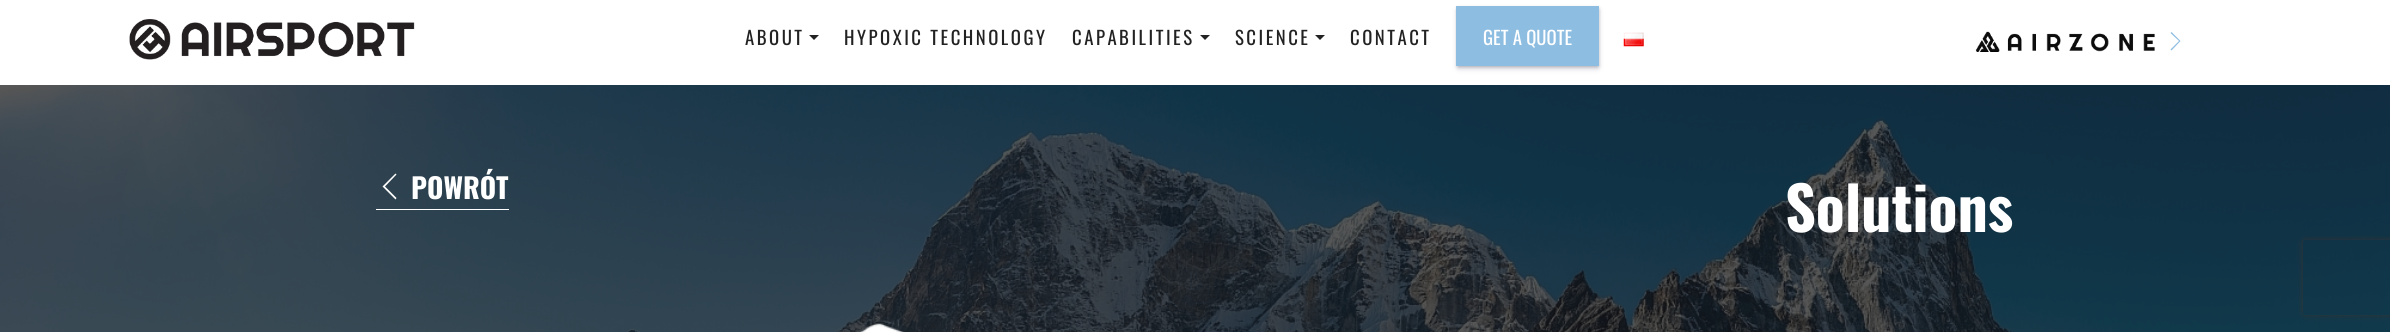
#include <cairo.h>
#include <math.h>
#include <stddef.h>


static void set_color(cairo_t *cr, unsigned color) {
    cairo_set_source_rgb(cr, (color >> 16) / 255.0, (color >> 8 & 255) / 255.0, (color & 255) / 255.0);
}

static void draw_text(cairo_t *cr, double x, double y, const char *s, const char *family, double size, int italic, int bold, unsigned color) {
    cairo_select_font_face(cr, family, italic ? CAIRO_FONT_SLANT_ITALIC : CAIRO_FONT_SLANT_NORMAL,
        bold ? CAIRO_FONT_WEIGHT_BOLD : CAIRO_FONT_WEIGHT_NORMAL);
    cairo_set_font_size(cr, size);
    set_color(cr, color);
    cairo_move_to(cr, x, y);
    cairo_show_text(cr, s);
}

static void draw_spaced(cairo_t *cr, double x, double y, const char *s, double letter, double word) {
    cairo_move_to(cr, x, y);
    while (*s) {
        char ch[5] = {0};
        int n = 0;
        do ch[n++] = *s++; while ((*s & 0xC0) == 0x80);
        cairo_show_text(cr, ch);
        cairo_rel_move_to(cr, letter + word * (*ch == ' '), 0);
    }
}

static void fill_rect(cairo_t *cr, double x, double y, double w, double h, unsigned color) {
    set_color(cr, color);
    cairo_rectangle(cr, x, y, w, h);
    cairo_fill(cr);
}

static void rounded_rect(cairo_t *cr, double x, double y, double w, double h, double r) {
    cairo_new_sub_path(cr);
    cairo_arc(cr, x + w - r, y + h - r, r, 0, M_PI / 2);
    cairo_arc(cr, x + r, y + h - r, r, M_PI / 2, M_PI);
    cairo_arc(cr, x + r, y + r, r, M_PI, 1.5 * M_PI);
    cairo_arc(cr, x + w - r, y + r, r, 1.5 * M_PI, 2 * M_PI);
    cairo_close_path(cr);
}

static void draw_shadow(cairo_t *cr, double x, double y, double w, double h, double r, double blur, double alpha) {
    cairo_push_group_with_content(cr, CAIRO_CONTENT_ALPHA);
    cairo_set_operator(cr, CAIRO_OPERATOR_SOURCE);
    for (int i = 15; i >= -15 && fmin(w, h) + blur * i / 3 > 0; i -= 2) {
        double e = blur * i / 6;
        cairo_set_source_rgba(cr, 0, 0, 0, alpha * erfc((i - 1) / 8.5) / 2);
        rounded_rect(cr, x - e, y - e, w + 2 * e, h + 2 * e, fmax(0, fmin(r + e + blur * .6, fmin(w, h) / 2 + e)));
        cairo_fill(cr);
    }
    cairo_pattern_t *soft = cairo_pop_group(cr);
    cairo_mask(cr, soft);
    cairo_pattern_destroy(soft);
}

static void draw_image(cairo_t *cr, const char *path, double x, double y, double w, double h) {
    cairo_surface_t *image = cairo_image_surface_create_from_png(path);
    cairo_save(cr);
    cairo_set_source_surface(cr, image, x, y);
    cairo_rectangle(cr, x, y, w, h);
    cairo_fill(cr);
    cairo_restore(cr);
    cairo_surface_destroy(image);
}

int main(void) {
    cairo_surface_t *surface = cairo_image_surface_create(CAIRO_FORMAT_RGB24, 2390, 332);
    cairo_t *cr = cairo_create(surface);
    cairo_font_options_t *options = cairo_font_options_create();
    cairo_font_options_set_hint_metrics(options, CAIRO_HINT_METRICS_OFF);
    cairo_font_options_set_hint_style(options, CAIRO_HINT_STYLE_NONE);
    cairo_set_font_options(cr, options);
    cairo_set_miter_limit(cr, 4);
    set_color(cr, 0xFFFFFF);
    cairo_paint(cr);
    draw_image(cr, "assets/img1.png", 129, 19, 286, 41);
    cairo_select_font_face(cr, "Oswald", CAIRO_FONT_SLANT_NORMAL, CAIRO_FONT_WEIGHT_NORMAL);
    cairo_set_font_size(cr, 18.75);
    set_color(cr, 0x222222);
    draw_spaced(cr, 745, 45, "ABOUT", 2.5, 0);
    cairo_new_path(cr);
    cairo_move_to(cr, 809, 35);
    cairo_line_to(cr, 819, 35);
    cairo_line_to(cr, 814, 40);
    cairo_close_path(cr);
    cairo_fill(cr);
    draw_spaced(cr, 844, 45, "HYPOXIC TECHNOLOGY", 2.5, 0);
    draw_spaced(cr, 1072, 45, "CAPABILITIES", 2.5, 0);
    cairo_new_path(cr);
    cairo_move_to(cr, 1200, 35);
    cairo_line_to(cr, 1210, 35);
    cairo_line_to(cr, 1205, 40);
    cairo_close_path(cr);
    cairo_fill(cr);
    draw_spaced(cr, 1235, 45, "SCIENCE", 2.5, 0);
    cairo_new_path(cr);
    cairo_move_to(cr, 1315, 35);
    cairo_line_to(cr, 1325, 35);
    cairo_line_to(cr, 1320, 40);
    cairo_close_path(cr);
    cairo_fill(cr);
    draw_spaced(cr, 1350, 45, "CONTACT", 2.5, 0);
    set_color(cr, 0x000000);
    draw_shadow(cr, 1458, 9, 140, 57, 0, 2, 0.3);
    set_color(cr, 0x32325D);
    draw_shadow(cr, 1458, 10, 140, 58, 0, 3, 0.25);
    fill_rect(cr, 1456, 6, 143, 60, 0x8DBDE1);
    draw_text(cr, 1483, 45, "GET A QUOTE", "Oswald", 18.75, 0, 0, 0xFFFFFF);
    draw_image(cr, "assets/img2.png", 1623, 32, 21, 15);
    draw_image(cr, "assets/img3.png", 1975, 31, 180, 21);
    set_color(cr, 0x8DBDE1);
    cairo_new_path(cr);
    cairo_move_to(cr, 2180.5, 41);
    cairo_line_to(cr, 2171.5, 50.5);
    cairo_line_to(cr, 2170.5, 49.5);
    cairo_line_to(cr, 2179, 41);
    cairo_line_to(cr, 2170.5, 33);
    cairo_line_to(cr, 2171.5, 32);
    cairo_close_path(cr);
    cairo_fill(cr);
    draw_image(cr, "assets/img4.png", 0, 85, 2390, 247);
    fill_rect(cr, 376, 209, 133, 1, 0xFFFFFF);
    cairo_new_path(cr);
    cairo_move_to(cr, 385, 186.5);
    cairo_line_to(cr, 396.5, 198);
    cairo_line_to(cr, 395.5, 199.5);
    cairo_line_to(cr, 382.5, 186.5);
    cairo_line_to(cr, 395.5, 173.5);
    cairo_line_to(cr, 396.5, 174.5);
    cairo_close_path(cr);
    cairo_fill(cr);
    draw_text(cr, 411, 199, "POWRÓT", "Oswald", 28, 0, 1, 0xFFFFFF);
    draw_text(cr, 1785, 232, "Solutions", "Oswald", 60, 0, 1, 0xFFFFFF);
    draw_image(cr, "assets/img5.png", 859, 323, 45, 9);
    cairo_save(cr);
    cairo_set_fill_rule(cr, CAIRO_FILL_RULE_EVEN_ODD);
    cairo_new_path(cr);
    cairo_move_to(cr, 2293, 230);
    cairo_line_to(cr, 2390, 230);
    cairo_line_to(cr, 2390, 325);
    cairo_line_to(cr, 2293, 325);
    cairo_close_path(cr);
    cairo_move_to(cr, 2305.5, 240);
    cairo_line_to(cr, 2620.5, 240);
    cairo_curve_to(cr, 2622, 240, 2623, 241, 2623, 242.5);
    cairo_line_to(cr, 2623, 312.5);
    cairo_curve_to(cr, 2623, 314, 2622, 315, 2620.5, 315);
    cairo_line_to(cr, 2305.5, 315);
    cairo_curve_to(cr, 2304, 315, 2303, 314, 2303, 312.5);
    cairo_line_to(cr, 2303, 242.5);
    cairo_curve_to(cr, 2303, 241, 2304, 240, 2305.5, 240);
    cairo_close_path(cr);
    cairo_clip(cr);
    set_color(cr, 0x343434);
    draw_shadow(cr, 2303, 240, 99, 75, 2.5, 3, 1);
    cairo_restore(cr);
    cairo_surface_write_to_png(surface, "output.png");
    cairo_font_options_destroy(options);
    cairo_destroy(cr);
    cairo_surface_destroy(surface);
    return 0;
}
